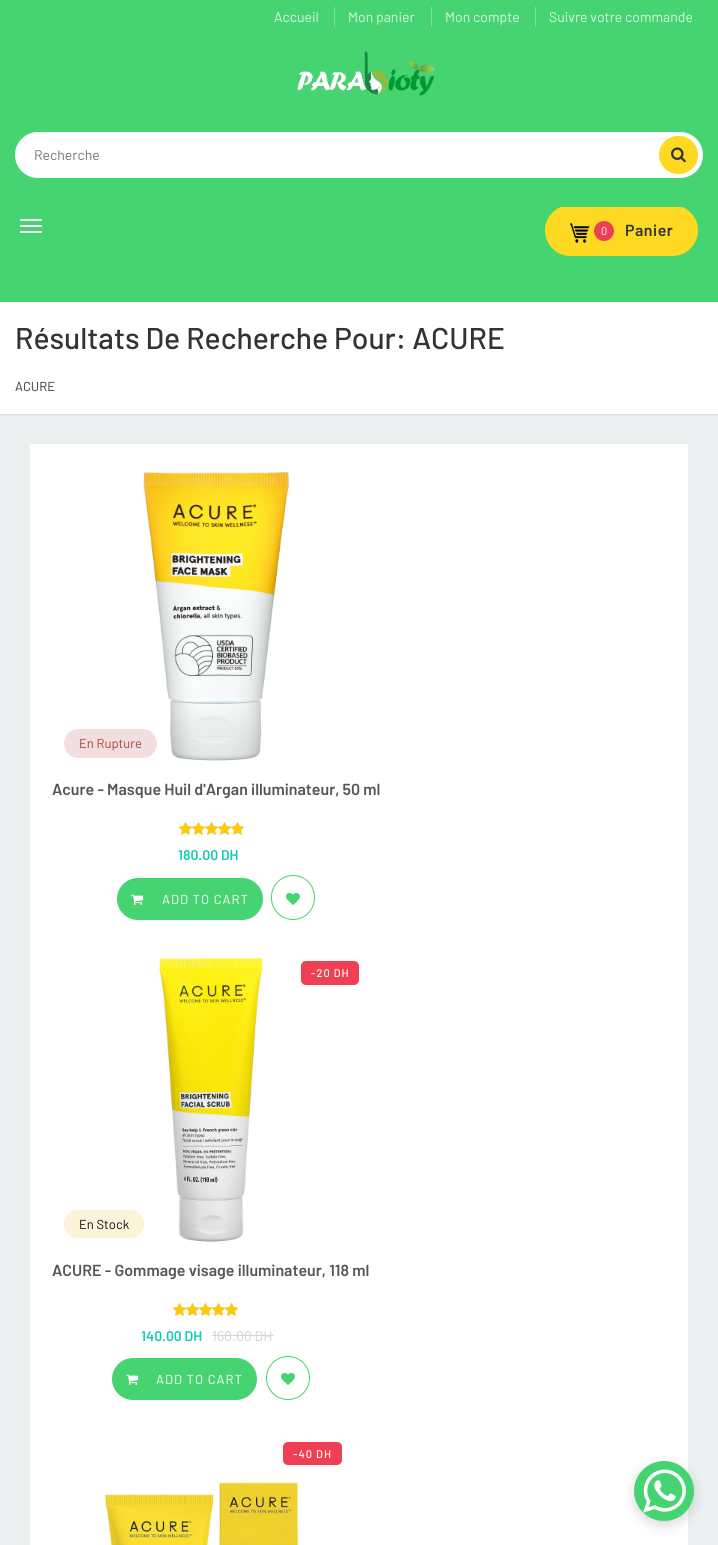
#include <cairo.h>
#include <math.h>
#include <stddef.h>


static void set_color(cairo_t *cr, unsigned color) {
    cairo_set_source_rgb(cr, (color >> 16) / 255.0, (color >> 8 & 255) / 255.0, (color & 255) / 255.0);
}

static void draw_text(cairo_t *cr, double x, double y, const char *s, const char *family, double size, int italic, int bold, unsigned color) {
    cairo_select_font_face(cr, family, italic ? CAIRO_FONT_SLANT_ITALIC : CAIRO_FONT_SLANT_NORMAL,
        bold ? CAIRO_FONT_WEIGHT_BOLD : CAIRO_FONT_WEIGHT_NORMAL);
    cairo_set_font_size(cr, size);
    set_color(cr, color);
    cairo_move_to(cr, x, y);
    cairo_show_text(cr, s);
}

static void draw_spaced(cairo_t *cr, double x, double y, const char *s, double letter, double word) {
    cairo_move_to(cr, x, y);
    while (*s) {
        char ch[5] = {0};
        int n = 0;
        do ch[n++] = *s++; while ((*s & 0xC0) == 0x80);
        cairo_show_text(cr, ch);
        cairo_rel_move_to(cr, letter + word * (*ch == ' '), 0);
    }
}

static void fill_rect(cairo_t *cr, double x, double y, double w, double h, unsigned color) {
    set_color(cr, color);
    cairo_rectangle(cr, x, y, w, h);
    cairo_fill(cr);
}

static void rounded_rect(cairo_t *cr, double x, double y, double w, double h, double r) {
    cairo_new_sub_path(cr);
    cairo_arc(cr, x + w - r, y + h - r, r, 0, M_PI / 2);
    cairo_arc(cr, x + r, y + h - r, r, M_PI / 2, M_PI);
    cairo_arc(cr, x + r, y + r, r, M_PI, 1.5 * M_PI);
    cairo_arc(cr, x + w - r, y + r, r, 1.5 * M_PI, 2 * M_PI);
    cairo_close_path(cr);
}

static void draw_shadow(cairo_t *cr, double x, double y, double w, double h, double r, double blur, double alpha) {
    cairo_push_group_with_content(cr, CAIRO_CONTENT_ALPHA);
    cairo_set_operator(cr, CAIRO_OPERATOR_SOURCE);
    for (int i = 15; i >= -15 && fmin(w, h) + blur * i / 3 > 0; i -= 2) {
        double e = blur * i / 6;
        cairo_set_source_rgba(cr, 0, 0, 0, alpha * erfc((i - 1) / 8.5) / 2);
        rounded_rect(cr, x - e, y - e, w + 2 * e, h + 2 * e, fmax(0, fmin(r + e + blur * .6, fmin(w, h) / 2 + e)));
        cairo_fill(cr);
    }
    cairo_pattern_t *soft = cairo_pop_group(cr);
    cairo_mask(cr, soft);
    cairo_pattern_destroy(soft);
}

static void draw_image(cairo_t *cr, const char *path, double x, double y, double w, double h) {
    cairo_surface_t *image = cairo_image_surface_create_from_png(path);
    cairo_save(cr);
    cairo_set_source_surface(cr, image, x, y);
    cairo_rectangle(cr, x, y, w, h);
    cairo_fill(cr);
    cairo_restore(cr);
    cairo_surface_destroy(image);
}

int main(void) {
    cairo_surface_t *surface = cairo_image_surface_create(CAIRO_FORMAT_RGB24, 718, 1545);
    cairo_t *cr = cairo_create(surface);
    cairo_font_options_t *options = cairo_font_options_create();
    cairo_font_options_set_hint_metrics(options, CAIRO_HINT_METRICS_OFF);
    cairo_font_options_set_hint_style(options, CAIRO_HINT_STYLE_NONE);
    cairo_set_font_options(cr, options);
    cairo_set_miter_limit(cr, 4);
    set_color(cr, 0xECF0F1);
    cairo_paint(cr);
    fill_rect(cr, 0, 0, 718, 302, 0x46D473);
    draw_text(cr, 274, 22, "Accueil", "Barlow", 14, 0, 0, 0xDAF6E3);
    fill_rect(cr, 334, 7, 1, 20, 0x7EE19D);
    draw_text(cr, 348, 22, "Mon panier", "Barlow", 14, 0, 0, 0xDAF6E3);
    fill_rect(cr, 431, 7, 1, 20, 0x7EE19D);
    draw_text(cr, 445, 22, "Mon compte", "Barlow", 14, 0, 0, 0xDAF6E3);
    fill_rect(cr, 535, 7, 1, 20, 0x7EE19D);
    draw_text(cr, 549, 22, "Suivre votre commande", "Barlow", 14, 0, 0, 0xDAF6E3);
    draw_image(cr, "assets/img1.png", 297, 51, 139, 45);
    set_color(cr, 0xFFFFFF);
    rounded_rect(cr, 15, 132, 688, 46, 23);
    cairo_fill(cr);
    draw_text(cr, 34, 160, "Recherche", "Barlow", 14, 0, 0, 0x757575);
    set_color(cr, 0xFDD922);
    rounded_rect(cr, 659, 136, 39, 38, 19);
    cairo_fill(cr);
    draw_image(cr, "assets/img2.png", 671, 147, 15, 16);
    set_color(cr, 0xFFFFFF);
    rounded_rect(cr, 20, 219, 22, 2, 1);
    cairo_fill(cr);
    rounded_rect(cr, 20, 225, 22, 2, 1);
    cairo_fill(cr);
    rounded_rect(cr, 20, 231, 22, 2, 1);
    cairo_fill(cr);
    set_color(cr, 0xFDD922);
    rounded_rect(cr, 545, 205, 153, 51, 25.5);
    cairo_fill(cr);
    fill_rect(cr, 558, 205, 127, 2, 0x46D473);
    draw_image(cr, "assets/img3.png", 570, 223, 20, 20);
    set_color(cr, 0xEE4054);
    cairo_arc(cr, 604, 231, 10, 0, 2 * M_PI);
    cairo_fill(cr);
    draw_text(cr, 601, 235, "0", "Barlow", 11, 0, 0, 0xFFFFFF);
    cairo_select_font_face(cr, "Barlow SemiBold", CAIRO_FONT_SLANT_NORMAL, CAIRO_FONT_WEIGHT_NORMAL);
    cairo_set_font_size(cr, 16);
    set_color(cr, 0x333333);
    draw_spaced(cr, 625, 236, "Panier", 0.5, 0);
    set_color(cr, 0x000000);
    draw_shadow(cr, 0, 303, 718, 112, 0, 1, 0.1);
    fill_rect(cr, 0, 302, 718, 112, 0xFFFFFF);
    draw_text(cr, 15, 349, "Résultats De Recherche Pour: ACURE", "Barlow Medium", 30, 0, 0, 0x333333);
    draw_text(cr, 15, 391, "ACURE", "Barlow", 13, 0, 0, 0x333333);
    fill_rect(cr, 30, 444, 658, 1101, 0xFFFFFF);
    draw_image(cr, "assets/img4.png", 143, 472, 147, 289);
    set_color(cr, 0xF2DEDE);
    rounded_rect(cr, 64, 729, 93, 29, 14.5);
    cairo_fill(cr);
    draw_text(cr, 79, 748, "En Rupture", "Barlow", 13, 0, 0, 0xA94442);
    draw_text(cr, 52, 795, "Acure - Masque Huil d'Argan illuminateur, 50 ml", "Barlow SemiBold", 16, 0, 0, 0x555555);
    draw_image(cr, "assets/img5.png", 179, 822, 65, 13);
    draw_image(cr, "assets/img6.png", 179, 822, 65, 13);
    draw_text(cr, 178, 860, "180.00 DH", "Barlow SemiBold", 14, 0, 0, 0x12CCA7);
    set_color(cr, 0x46D473);
    rounded_rect(cr, 117, 878, 146, 42, 21);
    cairo_fill(cr);
    draw_image(cr, "assets/img7.png", 131, 894, 13, 11);
    cairo_select_font_face(cr, "Barlow", CAIRO_FONT_SLANT_NORMAL, CAIRO_FONT_WEIGHT_NORMAL);
    cairo_set_font_size(cr, 13);
    set_color(cr, 0xFFFFFF);
    draw_spaced(cr, 162, 904, "ADD TO CART", 1, 0);
    rounded_rect(cr, 271.5, 875.5, 43, 44, 21.5);
    set_color(cr, 0x46D473);
    cairo_set_line_width(cr, 1);
    cairo_stroke(cr);
    draw_image(cr, "assets/img8.png", 286, 893, 14, 12);
    draw_image(cr, "assets/img9.png", 159, 958, 105, 284);
    set_color(cr, 0xEE4054);
    rounded_rect(cr, 301, 961, 58, 24, 5);
    cairo_fill(cr);
    cairo_select_font_face(cr, "Barlow Medium", CAIRO_FONT_SLANT_NORMAL, CAIRO_FONT_WEIGHT_NORMAL);
    cairo_set_font_size(cr, 11);
    set_color(cr, 0xFFFFFF);
    draw_spaced(cr, 311, 977, "-20 DH", 1, 0);
    set_color(cr, 0xFDF2DA);
    rounded_rect(cr, 64, 1210, 80, 28, 14);
    cairo_fill(cr);
    draw_text(cr, 79, 1229, "En Stock", "Barlow", 13, 0, 0, 0x111111);
    draw_text(cr, 52, 1276, "ACURE - Gommage visage illuminateur, 118 ml", "Barlow SemiBold", 16, 0, 0, 0x555555);
    draw_image(cr, "assets/img5.png", 173, 1303, 65, 13);
    draw_image(cr, "assets/img6.png", 173, 1303, 65, 13);
    draw_text(cr, 141, 1341, "140.00 DH", "Barlow SemiBold", 14, 0, 0, 0x12CCA7);
    draw_text(cr, 212, 1341, "160.00 DH", "Barlow", 14, 0, 0, 0xD3D3D3);
    fill_rect(cr, 212, 1335, 61, 1, 0xD3D3D3);
    set_color(cr, 0x46D473);
    rounded_rect(cr, 112, 1358, 145, 42, 21);
    cairo_fill(cr);
    draw_image(cr, "assets/img7.png", 126, 1374, 13, 11);
    cairo_set_font_size(cr, 13);
    set_color(cr, 0xFFFFFF);
    draw_spaced(cr, 156, 1384, "ADD TO CART", 1, 0);
    cairo_new_path(cr);
    cairo_arc(cr, 288, 1378, 21.5, 0, 2 * M_PI);
    set_color(cr, 0x46D473);
    cairo_stroke(cr);
    draw_image(cr, "assets/img8.png", 281, 1373, 14, 12);
    set_color(cr, 0xEE4054);
    rounded_rect(cr, 283, 1442, 59, 23, 5);
    cairo_fill(cr);
    cairo_select_font_face(cr, "Barlow Medium", CAIRO_FONT_SLANT_NORMAL, CAIRO_FONT_WEIGHT_NORMAL);
    cairo_set_font_size(cr, 11);
    set_color(cr, 0xFFFFFF);
    draw_spaced(cr, 293, 1458, "-40 DH", 1, 0);
    draw_image(cr, "assets/img10.png", 103, 1481, 197, 64);
    set_color(cr, 0x000000);
    draw_shadow(cr, 634, 1465, 60, 60, 30, 6, 0.15);
    set_color(cr, 0x46D473);
    cairo_arc(cr, 664, 1491, 30, 0, 2 * M_PI);
    cairo_fill(cr);
    draw_image(cr, "assets/img11.png", 643, 1469, 43, 44);
    cairo_surface_write_to_png(surface, "output.png");
    cairo_font_options_destroy(options);
    cairo_destroy(cr);
    cairo_surface_destroy(surface);
    return 0;
}
